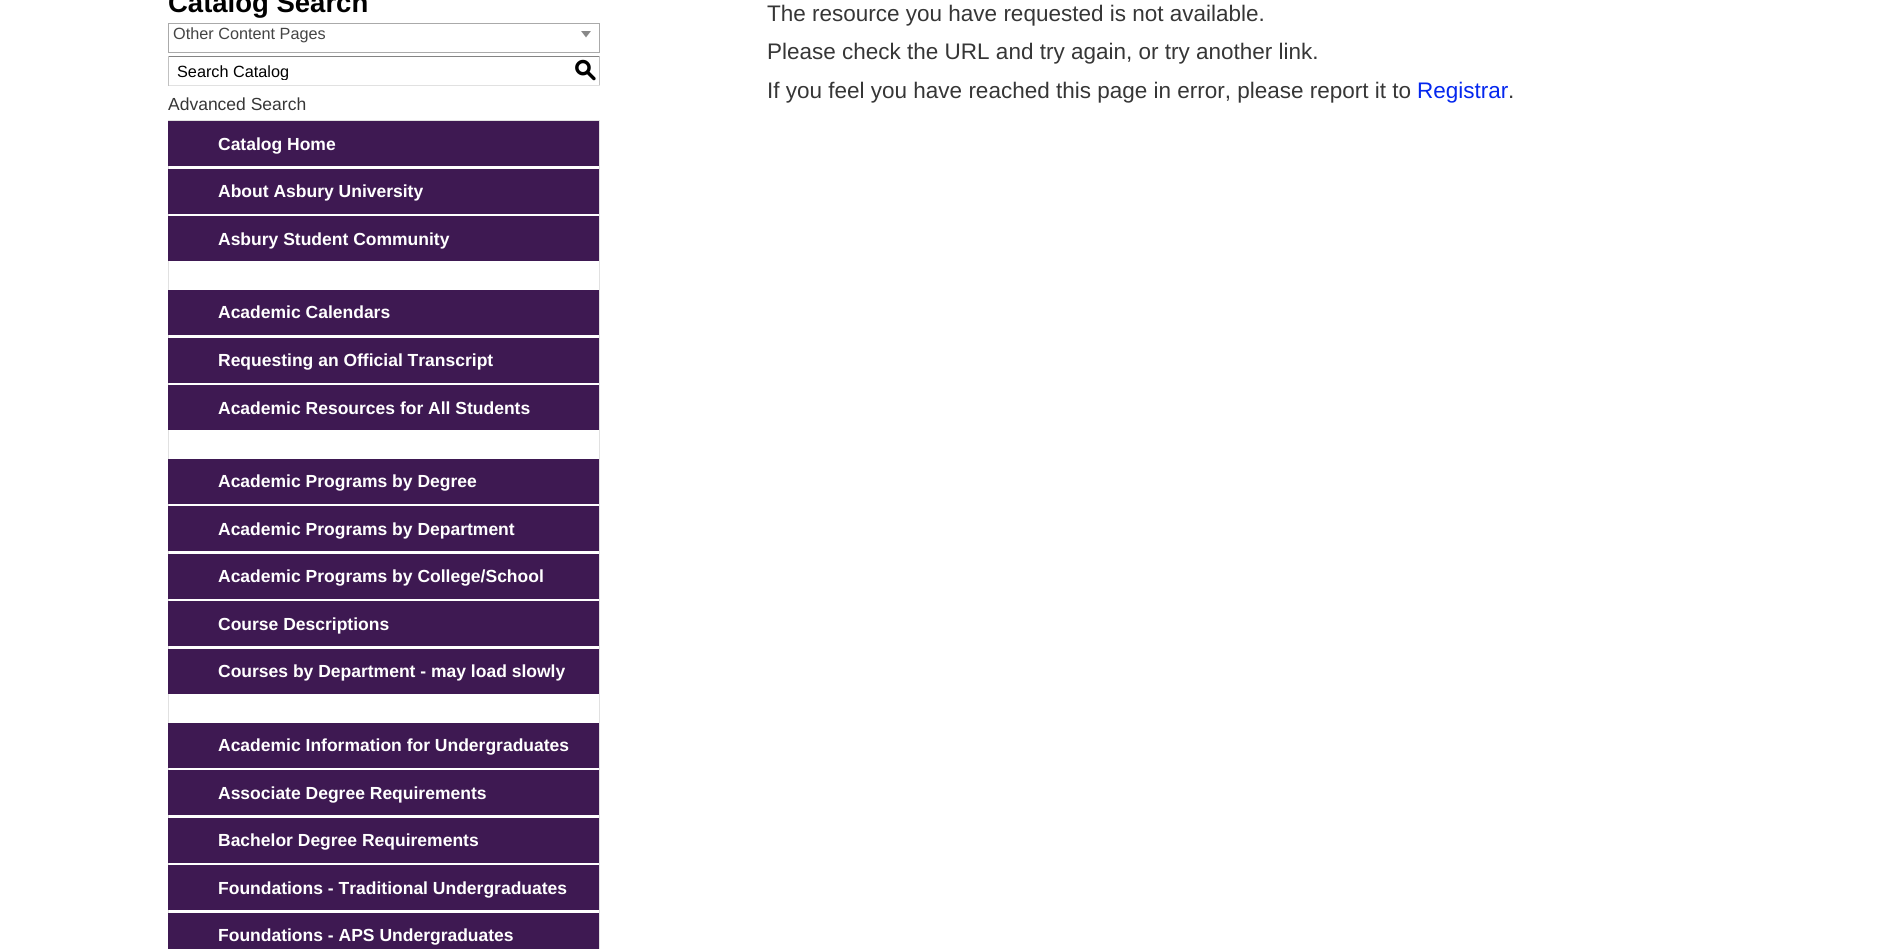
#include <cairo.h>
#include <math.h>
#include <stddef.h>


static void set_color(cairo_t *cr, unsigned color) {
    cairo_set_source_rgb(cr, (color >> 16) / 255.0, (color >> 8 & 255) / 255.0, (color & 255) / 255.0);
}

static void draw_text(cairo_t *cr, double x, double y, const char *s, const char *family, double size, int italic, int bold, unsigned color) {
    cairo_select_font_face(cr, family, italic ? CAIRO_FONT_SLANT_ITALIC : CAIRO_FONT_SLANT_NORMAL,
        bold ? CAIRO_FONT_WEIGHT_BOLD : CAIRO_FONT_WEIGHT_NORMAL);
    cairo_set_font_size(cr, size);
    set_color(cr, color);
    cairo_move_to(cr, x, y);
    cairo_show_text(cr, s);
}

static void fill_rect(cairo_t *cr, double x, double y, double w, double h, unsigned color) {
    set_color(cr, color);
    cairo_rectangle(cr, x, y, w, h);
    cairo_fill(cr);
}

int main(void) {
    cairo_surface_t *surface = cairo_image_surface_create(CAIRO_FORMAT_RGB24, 1896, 949);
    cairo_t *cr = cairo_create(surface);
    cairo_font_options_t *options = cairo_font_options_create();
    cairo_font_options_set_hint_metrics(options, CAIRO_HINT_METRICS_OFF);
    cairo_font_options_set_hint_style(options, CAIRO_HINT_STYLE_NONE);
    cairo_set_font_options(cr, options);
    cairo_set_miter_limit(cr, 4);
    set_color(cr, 0xFFFFFF);
    cairo_paint(cr);
    draw_text(cr, 168, 12, "Catalog Search", "Liberation Sans", 27.5, 0, 1, 0x000000);
    cairo_rectangle(cr, 168.5, 23.5, 431, 29);
    set_color(cr, 0xAAAAAA);
    cairo_set_line_width(cr, 1);
    cairo_stroke(cr);
    draw_text(cr, 173, 39, "Other Content Pages", "Liberation Sans", 16.25, 0, 0, 0x444444);
    set_color(cr, 0x888888);
    cairo_new_path(cr);
    cairo_move_to(cr, 581, 31);
    cairo_line_to(cr, 591, 31);
    cairo_line_to(cr, 586, 37.5);
    cairo_close_path(cr);
    cairo_fill(cr);
    fill_rect(cr, 168, 56, 432, 1, 0x848484);
    fill_rect(cr, 599, 56, 1, 30, 0xC1C1C1);
    fill_rect(cr, 168, 85, 432, 1, 0xE1E1E1);
    fill_rect(cr, 168, 56, 1, 30, 0xC1C1C1);
    cairo_save(cr);
    cairo_rectangle(cr, 176, 61, 393, 19);
    cairo_clip(cr);
    draw_text(cr, 177, 77, "Search Catalog", "Liberation Sans", 16.25, 0, 0, 0x000000);
    cairo_restore(cr);
    draw_text(cr, 574, 77, "S", "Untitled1 Medium", 22.5, 0, 0, 0x000000);
    draw_text(cr, 168, 110, "Advanced Search", "Liberation Sans", 17.5, 0, 0, 0x363636);
    cairo_rectangle(cr, 168.5, 120.5, 431, 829);
    set_color(cr, 0xE1E1E1);
    cairo_stroke(cr);
    fill_rect(cr, 168, 121, 431, 45, 0x3E1952);
    draw_text(cr, 218, 150, "Catalog Home", "Liberation Sans", 17.5, 0, 1, 0xFFFFFF);
    fill_rect(cr, 168, 169, 431, 45, 0x3E1952);
    draw_text(cr, 218, 197, "About Asbury University", "Liberation Sans", 17.5, 0, 1, 0xFFFFFF);
    fill_rect(cr, 168, 216, 431, 45, 0x3E1952);
    draw_text(cr, 218, 245, "Asbury Student Community", "Liberation Sans", 17.5, 0, 1, 0xFFFFFF);
    fill_rect(cr, 168, 290, 431, 45, 0x3E1952);
    draw_text(cr, 218, 318, "Academic Calendars", "Liberation Sans", 17.5, 0, 1, 0xFFFFFF);
    fill_rect(cr, 168, 338, 431, 45, 0x3E1952);
    draw_text(cr, 218, 366, "Requesting an Official Transcript", "Liberation Sans", 17.5, 0, 1, 0xFFFFFF);
    fill_rect(cr, 168, 385, 431, 45, 0x3E1952);
    draw_text(cr, 218, 414, "Academic Resources for All Students", "Liberation Sans", 17.5, 0, 1, 0xFFFFFF);
    fill_rect(cr, 168, 459, 431, 45, 0x3E1952);
    draw_text(cr, 218, 487, "Academic Programs by Degree", "Liberation Sans", 17.5, 0, 1, 0xFFFFFF);
    fill_rect(cr, 168, 506, 431, 45, 0x3E1952);
    draw_text(cr, 218, 535, "Academic Programs by Department", "Liberation Sans", 17.5, 0, 1, 0xFFFFFF);
    fill_rect(cr, 168, 554, 431, 45, 0x3E1952);
    draw_text(cr, 218, 582, "Academic Programs by College/School", "Liberation Sans", 17.5, 0, 1, 0xFFFFFF);
    fill_rect(cr, 168, 601, 431, 45, 0x3E1952);
    draw_text(cr, 218, 630, "Course Descriptions", "Liberation Sans", 17.5, 0, 1, 0xFFFFFF);
    fill_rect(cr, 168, 649, 431, 45, 0x3E1952);
    draw_text(cr, 218, 677, "Courses by Department - may load slowly", "Liberation Sans", 17.5, 0, 1, 0xFFFFFF);
    fill_rect(cr, 168, 723, 431, 45, 0x3E1952);
    draw_text(cr, 218, 751, "Academic Information for Undergraduates", "Liberation Sans", 17.5, 0, 1, 0xFFFFFF);
    fill_rect(cr, 168, 770, 431, 45, 0x3E1952);
    draw_text(cr, 218, 799, "Associate Degree Requirements", "Liberation Sans", 17.5, 0, 1, 0xFFFFFF);
    fill_rect(cr, 168, 818, 431, 45, 0x3E1952);
    draw_text(cr, 218, 846, "Bachelor Degree Requirements", "Liberation Sans", 17.5, 0, 1, 0xFFFFFF);
    fill_rect(cr, 168, 865, 431, 45, 0x3E1952);
    draw_text(cr, 218, 894, "Foundations - Traditional Undergraduates", "Liberation Sans", 17.5, 0, 1, 0xFFFFFF);
    fill_rect(cr, 168, 913, 431, 36, 0x3E1952);
    draw_text(cr, 218, 941, "Foundations - APS Undergraduates", "Liberation Sans", 17.5, 0, 1, 0xFFFFFF);
    draw_text(cr, 767, 21, "The resource you have requested is not available.", "Liberation Sans", 22.5, 0, 0, 0x363636);
    draw_text(cr, 767, 59, "Please check the URL and try again, or try another link.", "Liberation Sans", 22.5, 0, 0, 0x363636);
    draw_text(cr, 767, 98, "If you feel you have reached this page in error, please report it to", "Liberation Sans", 22.5, 0, 0, 0x363636);
    draw_text(cr, 1417, 98, "Registrar", "Liberation Sans", 22.5, 0, 0, 0x0427EE);
    draw_text(cr, 1508, 98, ".", "Liberation Sans", 22.5, 0, 0, 0x363636);
    cairo_surface_write_to_png(surface, "output.png");
    cairo_font_options_destroy(options);
    cairo_destroy(cr);
    cairo_surface_destroy(surface);
    return 0;
}
